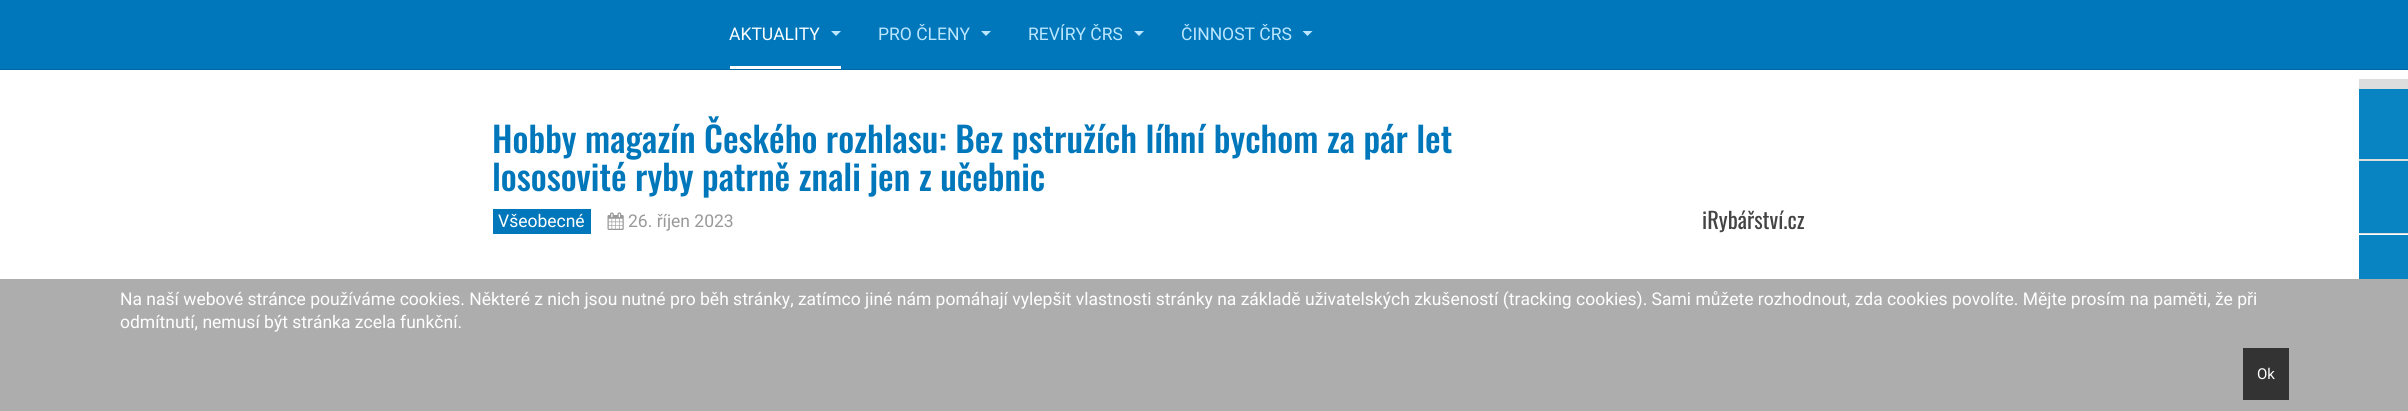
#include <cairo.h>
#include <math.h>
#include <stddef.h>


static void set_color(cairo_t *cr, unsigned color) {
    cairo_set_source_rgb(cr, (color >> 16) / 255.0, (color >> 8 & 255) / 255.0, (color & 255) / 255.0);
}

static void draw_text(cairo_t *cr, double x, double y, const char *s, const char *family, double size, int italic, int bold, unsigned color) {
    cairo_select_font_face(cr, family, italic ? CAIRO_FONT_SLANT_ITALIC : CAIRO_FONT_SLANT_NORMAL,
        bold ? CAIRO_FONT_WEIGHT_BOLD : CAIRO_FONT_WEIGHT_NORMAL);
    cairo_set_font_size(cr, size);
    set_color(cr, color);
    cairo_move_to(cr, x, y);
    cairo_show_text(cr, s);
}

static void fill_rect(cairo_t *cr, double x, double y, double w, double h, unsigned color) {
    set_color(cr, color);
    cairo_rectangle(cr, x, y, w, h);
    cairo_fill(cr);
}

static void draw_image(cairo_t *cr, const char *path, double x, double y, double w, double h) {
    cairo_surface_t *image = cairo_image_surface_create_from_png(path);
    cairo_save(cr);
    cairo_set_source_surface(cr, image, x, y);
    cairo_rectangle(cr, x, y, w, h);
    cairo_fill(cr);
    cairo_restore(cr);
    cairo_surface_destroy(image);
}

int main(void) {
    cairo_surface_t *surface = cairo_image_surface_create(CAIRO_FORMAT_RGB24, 2408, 411);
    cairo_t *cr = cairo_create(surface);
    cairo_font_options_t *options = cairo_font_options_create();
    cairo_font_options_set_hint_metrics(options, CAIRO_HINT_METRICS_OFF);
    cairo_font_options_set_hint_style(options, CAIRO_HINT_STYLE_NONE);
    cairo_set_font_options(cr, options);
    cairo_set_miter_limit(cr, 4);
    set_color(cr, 0xFFFFFF);
    cairo_paint(cr);
    fill_rect(cr, 0, 0, 2408, 69, 0x0077BB);
    fill_rect(cr, 0, 69, 2408, 1, 0x0067A2);
    fill_rect(cr, 730, 66, 111, 3, 0xFFFFFF);
    draw_text(cr, 729, 40, "AKTUALITY", "Roboto", 17.5, 0, 0, 0xFFFFFF);
    set_color(cr, 0xBBE6FF);
    cairo_new_path(cr);
    cairo_move_to(cr, 831, 31);
    cairo_line_to(cr, 841, 31);
    cairo_line_to(cr, 836, 36);
    cairo_close_path(cr);
    cairo_fill(cr);
    draw_text(cr, 878, 40, "PRO ČLENY", "Roboto", 17.5, 0, 0, 0xBBE6FF);
    cairo_new_path(cr);
    cairo_move_to(cr, 981, 31);
    cairo_line_to(cr, 991, 31);
    cairo_line_to(cr, 986, 36);
    cairo_close_path(cr);
    cairo_fill(cr);
    draw_text(cr, 1028, 40, "REVÍRY ČRS", "Roboto", 17.5, 0, 0, 0xBBE6FF);
    cairo_new_path(cr);
    cairo_move_to(cr, 1134, 31);
    cairo_line_to(cr, 1144, 31);
    cairo_line_to(cr, 1139, 36);
    cairo_close_path(cr);
    cairo_fill(cr);
    draw_text(cr, 1181, 40, "ČINNOST ČRS", "Roboto", 17.5, 0, 0, 0xBBE6FF);
    cairo_new_path(cr);
    cairo_move_to(cr, 1302.5, 31);
    cairo_line_to(cr, 1312.5, 31);
    cairo_line_to(cr, 1307.5, 36);
    cairo_close_path(cr);
    cairo_fill(cr);
    draw_text(cr, 492, 153, "Hobby magazín Českého rozhlasu: Bez pstružích líhní bychom za pár let", "Oswald Medium", 35, 0, 0, 0x0077BB);
    draw_text(cr, 492, 191, "lososovité ryby patrně znali jen z učebnic", "Oswald Medium", 35, 0, 0, 0x0077BB);
    fill_rect(cr, 493, 209, 98, 25, 0x0077BB);
    draw_text(cr, 498, 227, "Všeobecné", "Roboto", 17.5, 0, 0, 0xFFFFFF);
    draw_image(cr, "assets/img1.png", 607, 212, 17, 18);
    draw_text(cr, 628, 227, "26. říjen 2023", "Roboto", 17.5, 0, 0, 0x999999);
    draw_text(cr, 1702, 229, "iRybářství.cz", "Oswald", 22.5, 0, 0, 0x444444);
    fill_rect(cr, 2359, 79, 49, 10, 0xDDDDDD);
    fill_rect(cr, 2359, 89, 49, 70, 0x0884C2);
    fill_rect(cr, 2359, 161, 49, 72, 0x0884C2);
    fill_rect(cr, 2359, 235, 49, 44, 0x0884C2);
    fill_rect(cr, 2359, 159, 49, 2, 0xDDDDDD);
    fill_rect(cr, 2359, 233, 49, 1, 0xDDDDDD);
    fill_rect(cr, 0, 279, 2408, 132, 0xADADAD);
    draw_text(cr, 120, 305, "Na naší webové stránce používáme cookies. Některé z nich jsou nutné pro běh stránky, zatímco jiné nám pomáhají vylepšit vlastnosti stránky na základě uživatelských zkušeností (tracking cookies). Sami můžete rozhodnout, zda cookies povolíte. Mějte prosím na paměti, že při", "Roboto", 17.5, 0, 0, 0xFFFFFF);
    draw_text(cr, 120, 328, "odmítnutí, nemusí být stránka zcela funkční.", "Roboto", 17.5, 0, 0, 0xFFFFFF);
    fill_rect(cr, 2243, 348, 46, 52, 0x333333);
    draw_text(cr, 2257, 379, "Ok", "Roboto", 15, 0, 0, 0xFFFFFF);
    cairo_surface_write_to_png(surface, "output.png");
    cairo_font_options_destroy(options);
    cairo_destroy(cr);
    cairo_surface_destroy(surface);
    return 0;
}
